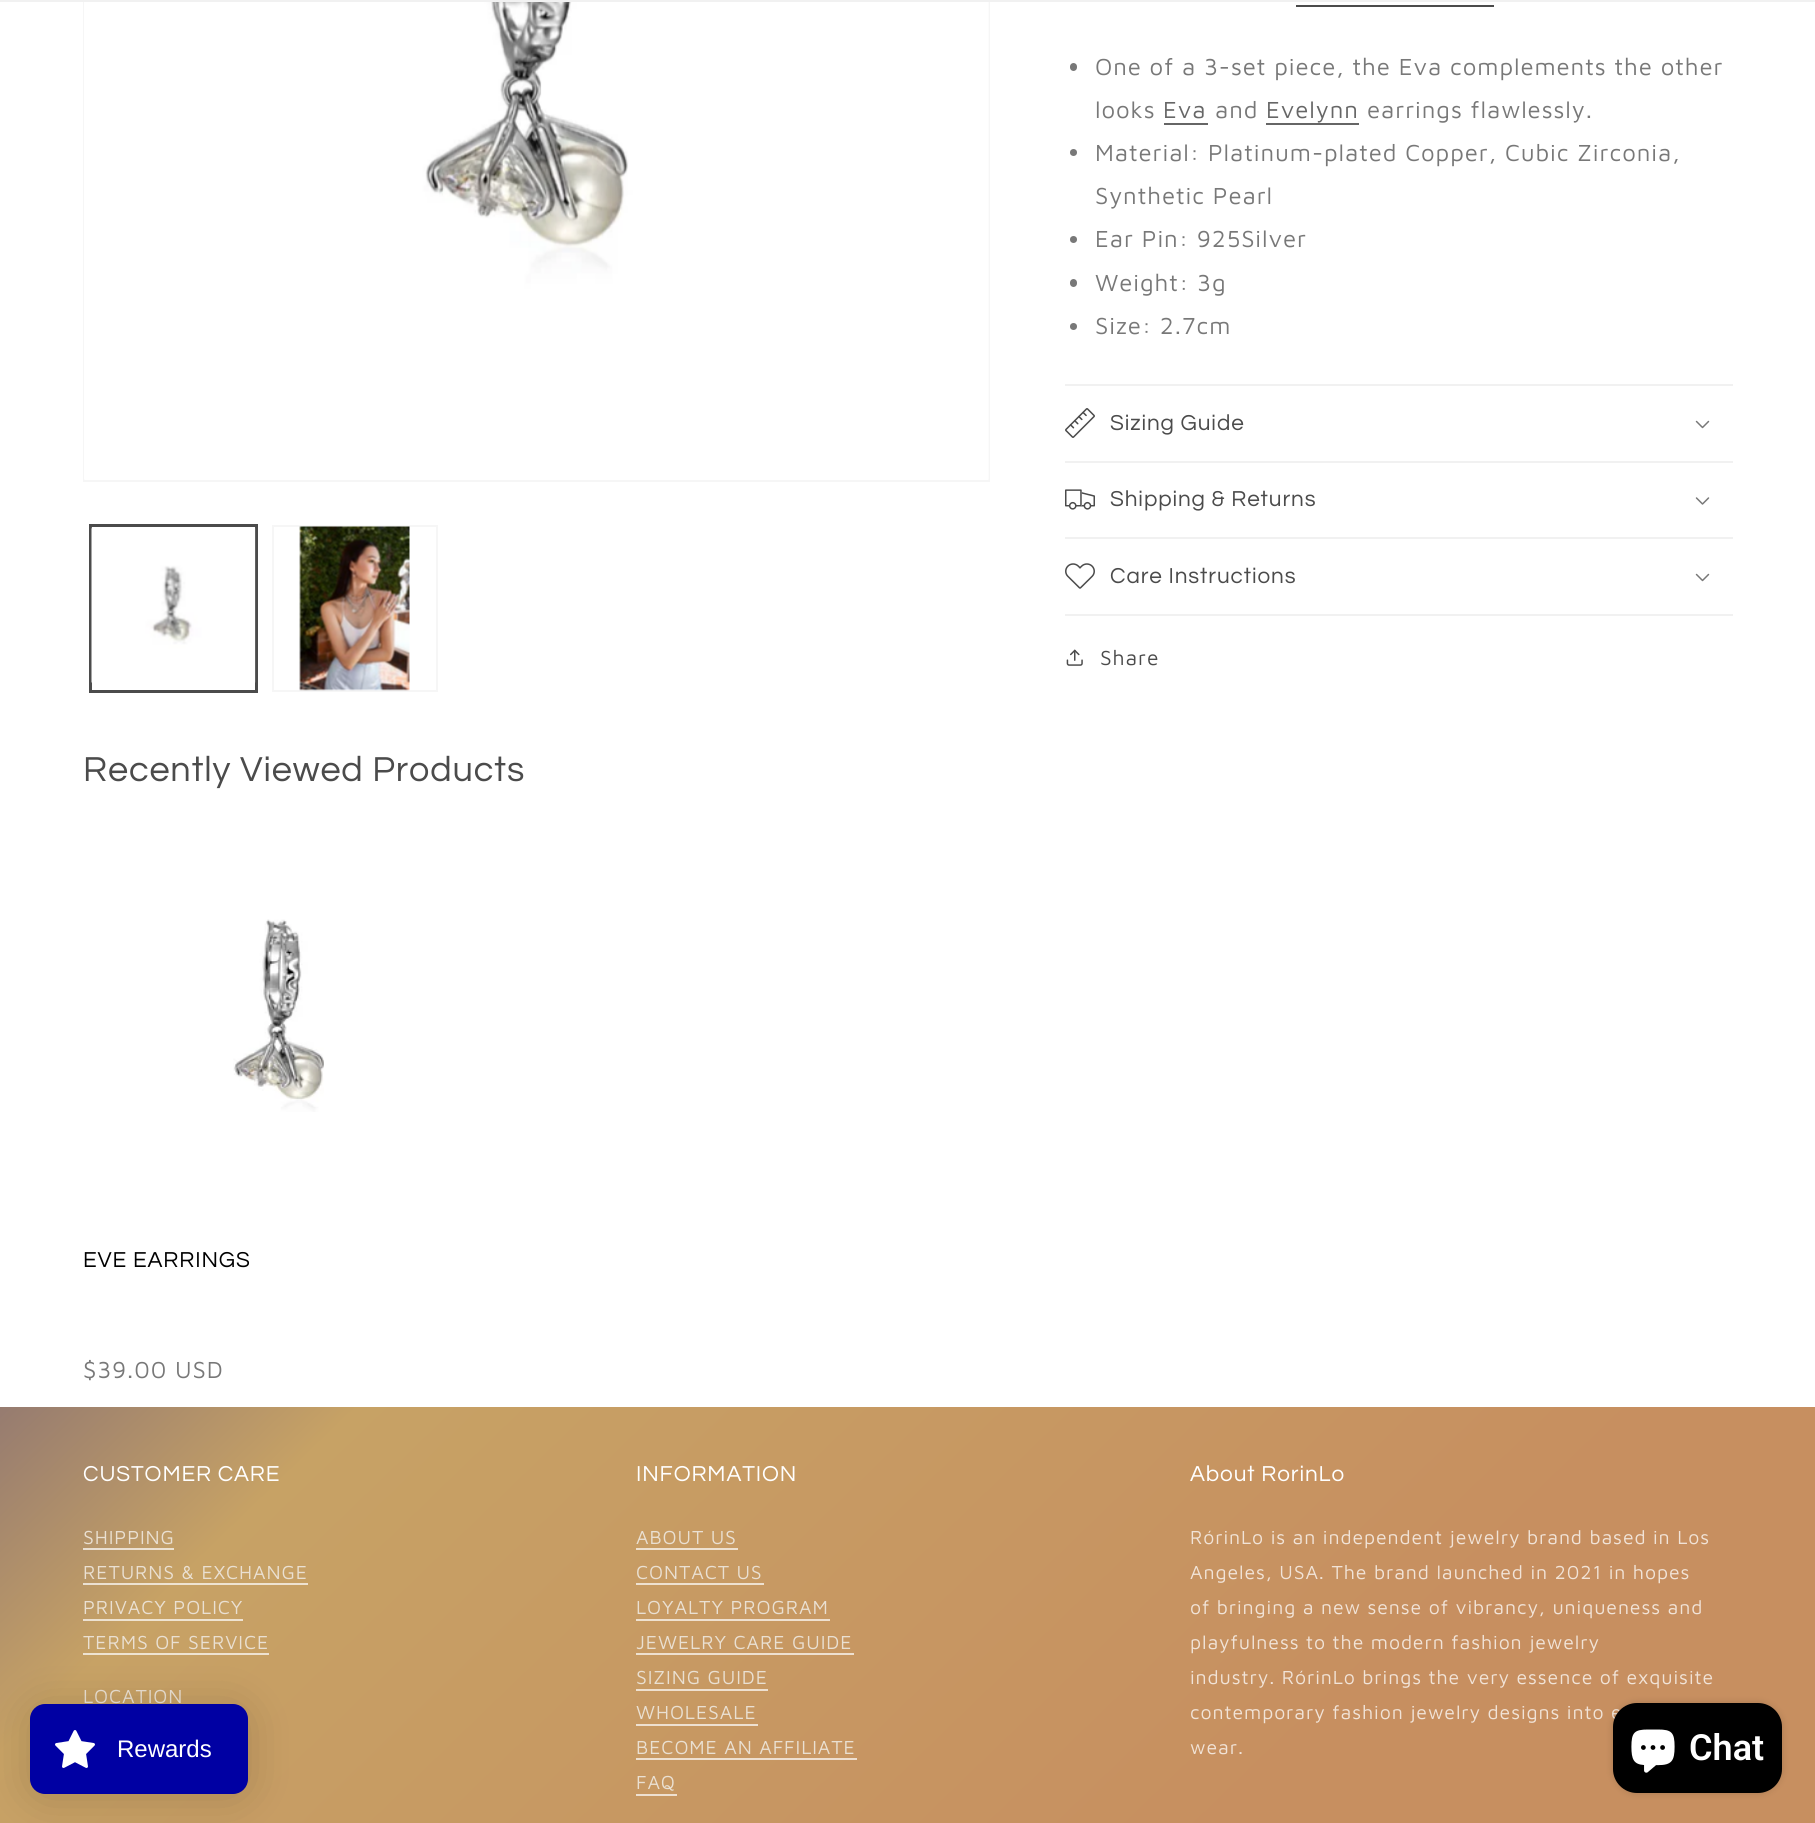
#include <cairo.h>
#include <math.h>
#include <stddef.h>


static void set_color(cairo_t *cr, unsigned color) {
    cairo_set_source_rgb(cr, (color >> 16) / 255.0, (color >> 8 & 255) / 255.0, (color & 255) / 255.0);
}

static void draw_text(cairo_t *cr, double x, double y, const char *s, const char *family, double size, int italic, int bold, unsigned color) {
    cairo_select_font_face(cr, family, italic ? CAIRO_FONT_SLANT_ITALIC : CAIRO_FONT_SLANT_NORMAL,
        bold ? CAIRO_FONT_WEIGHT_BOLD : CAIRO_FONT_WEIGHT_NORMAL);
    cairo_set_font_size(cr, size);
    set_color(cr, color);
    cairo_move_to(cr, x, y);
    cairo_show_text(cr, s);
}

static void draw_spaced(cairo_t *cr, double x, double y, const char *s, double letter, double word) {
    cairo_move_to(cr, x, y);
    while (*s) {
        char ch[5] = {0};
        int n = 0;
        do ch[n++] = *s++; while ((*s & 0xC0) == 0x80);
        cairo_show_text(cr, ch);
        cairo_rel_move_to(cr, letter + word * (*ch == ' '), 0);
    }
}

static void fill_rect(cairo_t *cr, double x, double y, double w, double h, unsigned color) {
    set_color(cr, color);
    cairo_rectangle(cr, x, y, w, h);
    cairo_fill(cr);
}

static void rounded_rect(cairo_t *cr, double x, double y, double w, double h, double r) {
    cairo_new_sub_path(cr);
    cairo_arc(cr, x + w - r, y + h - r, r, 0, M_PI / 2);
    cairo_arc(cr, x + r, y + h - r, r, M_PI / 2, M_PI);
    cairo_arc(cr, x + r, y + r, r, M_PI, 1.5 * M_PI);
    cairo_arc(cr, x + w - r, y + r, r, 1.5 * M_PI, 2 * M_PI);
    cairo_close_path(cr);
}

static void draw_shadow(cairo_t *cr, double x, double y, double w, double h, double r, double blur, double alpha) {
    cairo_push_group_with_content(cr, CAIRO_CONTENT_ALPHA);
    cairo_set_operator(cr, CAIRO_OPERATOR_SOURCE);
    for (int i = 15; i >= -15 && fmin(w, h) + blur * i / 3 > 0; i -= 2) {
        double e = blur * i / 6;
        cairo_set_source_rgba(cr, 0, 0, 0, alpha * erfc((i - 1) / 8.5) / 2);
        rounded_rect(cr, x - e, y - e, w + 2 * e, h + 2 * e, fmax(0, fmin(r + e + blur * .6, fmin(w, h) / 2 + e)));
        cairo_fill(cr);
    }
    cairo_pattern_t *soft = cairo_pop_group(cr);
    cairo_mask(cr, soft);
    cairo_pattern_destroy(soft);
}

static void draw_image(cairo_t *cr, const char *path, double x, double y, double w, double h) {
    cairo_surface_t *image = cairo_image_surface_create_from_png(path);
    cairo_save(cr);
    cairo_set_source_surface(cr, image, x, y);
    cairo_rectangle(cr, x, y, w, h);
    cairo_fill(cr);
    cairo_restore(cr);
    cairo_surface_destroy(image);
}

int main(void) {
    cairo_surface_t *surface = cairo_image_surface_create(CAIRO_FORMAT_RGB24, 1815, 1823);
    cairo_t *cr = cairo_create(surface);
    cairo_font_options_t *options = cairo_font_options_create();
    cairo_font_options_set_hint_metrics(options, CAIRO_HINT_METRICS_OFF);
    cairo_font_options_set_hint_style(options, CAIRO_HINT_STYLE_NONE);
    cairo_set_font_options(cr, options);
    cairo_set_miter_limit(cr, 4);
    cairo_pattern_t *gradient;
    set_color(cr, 0xFFFFFF);
    cairo_paint(cr);
    cairo_rectangle(cr, 84, -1, 905, 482);
    set_color(cr, 0xF6F6F6);
    cairo_stroke(cr);
    fill_rect(cr, 0, 0, 1815, 2, 0xF1F1F1);
    draw_image(cr, "assets/img1.png", 84, 2, 905, 478);
    cairo_rectangle(cr, 90, 525, 167, 167);
    set_color(cr, 0x4B4B4B);
    cairo_stroke(cr);
    cairo_rectangle(cr, 91, 526, 165, 165);
    cairo_stroke(cr);
    draw_image(cr, "assets/img2.png", 91, 527, 165, 156);
    cairo_rectangle(cr, 273, 526, 164, 165);
    set_color(cr, 0xF6F6F6);
    cairo_stroke(cr);
    draw_image(cr, "assets/img3.png", 299, 526, 111, 165);
    fill_rect(cr, 1296, 5, 198, 2, 0x4B4B4B);
    set_color(cr, 0x787878);
    rounded_rect(cr, 1070, 63, 7, 8, 3.5);
    cairo_fill(cr);
    cairo_select_font_face(cr, "Maven Pro", CAIRO_FONT_SLANT_NORMAL, CAIRO_FONT_WEIGHT_NORMAL);
    cairo_set_font_size(cr, 24);
    draw_spaced(cr, 1095, 75, "One of a 3-set piece, the Eva complements the other", 0.9, 0);
    draw_spaced(cr, 1095, 118, "looks", 0.9, 0);
    set_color(cr, 0x666666);
    draw_spaced(cr, 1163, 118, "Eva", 0.9, 0);
    fill_rect(cr, 1164, 123, 44, 2, 0x666666);
    set_color(cr, 0x787878);
    draw_spaced(cr, 1215, 118, "and", 0.9, 0);
    set_color(cr, 0x666666);
    draw_spaced(cr, 1266, 118, "Evelynn", 0.9, 0);
    fill_rect(cr, 1266, 123, 93, 2, 0x666666);
    set_color(cr, 0x787878);
    draw_spaced(cr, 1367, 118, "earrings flawlessly.", 0.9, 0);
    cairo_new_path(cr);
    cairo_arc(cr, 1073.5, 152.5, 3.5, 0, 2 * M_PI);
    cairo_fill(cr);
    draw_spaced(cr, 1095, 161, "Material: Platinum-plated Copper, Cubic Zirconia,", 0.9, 0);
    draw_spaced(cr, 1095, 204, "Synthetic Pearl", 0.9, 0);
    cairo_new_path(cr);
    cairo_arc(cr, 1073.5, 239.5, 3.5, 0, 2 * M_PI);
    cairo_fill(cr);
    draw_spaced(cr, 1095, 247, "Ear Pin: 925Silver", 0.9, 0);
    rounded_rect(cr, 1070, 279, 7, 8, 3.5);
    cairo_fill(cr);
    draw_spaced(cr, 1095, 291, "Weight: 3g", 0.9, 0);
    cairo_new_path(cr);
    cairo_arc(cr, 1073.5, 326.5, 3.5, 0, 2 * M_PI);
    cairo_fill(cr);
    draw_spaced(cr, 1095, 334, "Size: 2.7cm", 0.9, 0);
    fill_rect(cr, 1065, 384, 668, 2, 0xF1F1F1);
    fill_rect(cr, 1065, 461, 668, 2, 0xF1F1F1);
    draw_image(cr, "assets/img4.png", 1065, 408, 30, 30);
    cairo_select_font_face(cr, "Questrial", CAIRO_FONT_SLANT_NORMAL, CAIRO_FONT_WEIGHT_NORMAL);
    cairo_set_font_size(cr, 22.5);
    set_color(cr, 0x4B4B4B);
    draw_spaced(cr, 1110, 430, "Sizing Guide", 0.9, 0);
    draw_image(cr, "assets/img5.png", 1695, 420, 15, 9);
    fill_rect(cr, 1065, 537, 668, 2, 0xF1F1F1);
    draw_image(cr, "assets/img6.png", 1065, 489, 30, 21);
    set_color(cr, 0x4B4B4B);
    draw_spaced(cr, 1110, 506, "Shipping & Returns", 0.9, 0);
    draw_image(cr, "assets/img7.png", 1695, 497, 15, 8);
    fill_rect(cr, 1065, 614, 668, 2, 0xF1F1F1);
    draw_image(cr, "assets/img8.png", 1065, 563, 30, 26);
    set_color(cr, 0x4B4B4B);
    draw_spaced(cr, 1110, 583, "Care Instructions", 0.9, 0);
    draw_image(cr, "assets/img5.png", 1695, 573, 15, 9);
    draw_image(cr, "assets/img9.png", 1066, 649, 17, 17);
    cairo_select_font_face(cr, "Maven Pro", CAIRO_FONT_SLANT_NORMAL, CAIRO_FONT_WEIGHT_NORMAL);
    cairo_set_font_size(cr, 21);
    draw_spaced(cr, 1100, 665, "Share", 0.9, 0);
    cairo_select_font_face(cr, "Questrial", CAIRO_FONT_SLANT_NORMAL, CAIRO_FONT_WEIGHT_NORMAL);
    cairo_set_font_size(cr, 36);
    draw_spaced(cr, 83, 781, "Recently Viewed Products", 0.9, 0);
    draw_image(cr, "assets/img10.png", 233, 919, 91, 193);
    cairo_set_font_size(cr, 22.5);
    set_color(cr, 0x000000);
    draw_spaced(cr, 83, 1267, "EVE EARRINGS", 0.9, 0);
    cairo_select_font_face(cr, "Maven Pro", CAIRO_FONT_SLANT_NORMAL, CAIRO_FONT_WEIGHT_NORMAL);
    cairo_set_font_size(cr, 24);
    set_color(cr, 0x787878);
    draw_spaced(cr, 83, 1378, "$39.00 USD", 0.9, 0);
    gradient = cairo_pattern_create_linear(14, -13, 1801, 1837);
    cairo_pattern_add_color_stop_rgba(gradient, 0.11, 0.024, 0.039, 0.565, 1);
    cairo_pattern_add_color_stop_rgba(gradient, 0.49, 0.78, 0.635, 0.396, 1);
    cairo_pattern_add_color_stop_rgba(gradient, 0.84, 0.78, 0.561, 0.376, 1);
    cairo_set_source(cr, gradient);
    cairo_pattern_destroy(gradient);
    cairo_rectangle(cr, 0, 1407, 1815, 416);
    cairo_fill(cr);
    gradient = cairo_pattern_create_linear(14, -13, 1801, 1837);
    cairo_pattern_add_color_stop_rgba(gradient, 0.11, 0.706, 0.714, 0.871, 1);
    cairo_pattern_add_color_stop_rgba(gradient, 0.49, 0.933, 0.89, 0.82, 1);
    cairo_pattern_add_color_stop_rgba(gradient, 0.84, 0.933, 0.867, 0.812, 1);
    cairo_set_source(cr, gradient);
    cairo_pattern_destroy(gradient);
    cairo_rectangle(cr, 636, 1758, 221, 2);
    cairo_fill(cr);
    cairo_rectangle(cr, 636, 1653, 218, 2);
    cairo_fill(cr);
    cairo_rectangle(cr, 636, 1619, 194, 2);
    cairo_fill(cr);
    cairo_rectangle(cr, 83, 1653, 186, 2);
    cairo_fill(cr);
    cairo_rectangle(cr, 83, 1619, 160, 2);
    cairo_fill(cr);
    cairo_rectangle(cr, 83, 1583, 225, 2);
    cairo_fill(cr);
    cairo_rectangle(cr, 83, 1548, 91, 2);
    cairo_fill(cr);
    cairo_select_font_face(cr, "Questrial", CAIRO_FONT_SLANT_NORMAL, CAIRO_FONT_WEIGHT_NORMAL);
    cairo_set_font_size(cr, 22.5);
    set_color(cr, 0xFFFFFF);
    draw_spaced(cr, 83, 1481, "CUSTOMER CARE", 0.9, 0);
    cairo_select_font_face(cr, "Maven Pro", CAIRO_FONT_SLANT_NORMAL, CAIRO_FONT_WEIGHT_NORMAL);
    cairo_set_font_size(cr, 19.5);
    set_color(cr, 0xEAE0D2);
    draw_spaced(cr, 83, 1544, "SHIPPING", 0.9, 0);
    draw_spaced(cr, 83, 1579, "RETURNS & EXCHANGE", 0.9, 0);
    draw_spaced(cr, 83, 1614, "PRIVACY POLICY", 0.9, 0);
    draw_spaced(cr, 83, 1649, "TERMS OF SERVICE", 0.9, 0);
    draw_spaced(cr, 83, 1703, "LOCATION", 0.9, 0);
    cairo_select_font_face(cr, "Questrial", CAIRO_FONT_SLANT_NORMAL, CAIRO_FONT_WEIGHT_NORMAL);
    cairo_set_font_size(cr, 22.5);
    set_color(cr, 0xFFFFFF);
    draw_spaced(cr, 636, 1481, "INFORMATION", 0.9, 0);
    cairo_select_font_face(cr, "Maven Pro", CAIRO_FONT_SLANT_NORMAL, CAIRO_FONT_WEIGHT_NORMAL);
    cairo_set_font_size(cr, 19.5);
    set_color(cr, 0xEAE0D2);
    draw_spaced(cr, 636, 1544, "ABOUT US", 0.9, 0);
    fill_rect(cr, 636, 1548, 102, 2, 0xEEE1D0);
    set_color(cr, 0xEAE0D2);
    draw_spaced(cr, 636, 1579, "CONTACT US", 0.9, 0);
    fill_rect(cr, 636, 1583, 128, 2, 0xEEE1D0);
    set_color(cr, 0xEAE0D2);
    draw_spaced(cr, 636, 1614, "LOYALTY PROGRAM", 0.9, 0);
    draw_spaced(cr, 636, 1649, "JEWELRY CARE GUIDE", 0.9, 0);
    draw_spaced(cr, 636, 1684, "SIZING GUIDE", 0.9, 0);
    fill_rect(cr, 636, 1689, 132, 2, 0xEEE0D0);
    set_color(cr, 0xEAE0D2);
    draw_spaced(cr, 636, 1719, "WHOLESALE", 0.9, 0);
    fill_rect(cr, 636, 1724, 122, 2, 0xEEE0D0);
    set_color(cr, 0xEAE0D2);
    draw_spaced(cr, 636, 1754, "BECOME AN AFFILIATE", 0.9, 0);
    draw_spaced(cr, 636, 1789, "FAQ", 0.9, 0);
    fill_rect(cr, 636, 1794, 41, 2, 0xEEE0D0);
    cairo_select_font_face(cr, "Questrial", CAIRO_FONT_SLANT_NORMAL, CAIRO_FONT_WEIGHT_NORMAL);
    cairo_set_font_size(cr, 22.5);
    set_color(cr, 0xFFFFFF);
    draw_spaced(cr, 1190, 1481, "About RorinLo", 0.9, 0);
    cairo_select_font_face(cr, "Maven Pro", CAIRO_FONT_SLANT_NORMAL, CAIRO_FONT_WEIGHT_NORMAL);
    cairo_set_font_size(cr, 19.5);
    set_color(cr, 0xF1E3D7);
    draw_spaced(cr, 1190, 1544, "RórinLo is an independent jewelry brand based in Los", 0.9, 0);
    draw_spaced(cr, 1190, 1579, "Angeles, USA. The brand launched in 2021 in hopes", 0.9, 0);
    draw_spaced(cr, 1190, 1614, "of bringing a new sense of vibrancy, uniqueness and", 0.9, 0);
    draw_spaced(cr, 1190, 1649, "playfulness to the modern fashion jewelry", 0.9, 0);
    draw_spaced(cr, 1190, 1684, "industry. RórinLo brings the very essence of exquisite", 0.9, 0);
    draw_spaced(cr, 1190, 1719, "contemporary fashion jewelry designs into e", 0.9, 0);
    draw_spaced(cr, 1190, 1754, "wear.", 0.9, 0);
    set_color(cr, 0x000000);
    draw_shadow(cr, 1613, 1703, 169, 90, 24, 4, 0.15);
    set_color(cr, 0x000000);
    rounded_rect(cr, 1613, 1703, 169, 90, 24);
    cairo_fill(cr);
    draw_image(cr, "assets/img11.png", 1631, 1729, 44, 44);
    draw_text(cr, 1689, 1760, "Chat", "Roboto SemiBold", 36, 0, 0, 0xFFFFFF);
    set_color(cr, 0x000000);
    draw_shadow(cr, 30, 1707, 218, 90, 15, 22.5, 0.15);
    set_color(cr, 0x0000A3);
    rounded_rect(cr, 30, 1704, 218, 90, 15);
    cairo_fill(cr);
    draw_image(cr, "assets/img12.png", 55, 1730, 40, 38);
    draw_text(cr, 117, 1757, "Rewards", "Liberation Sans", 24, 0, 0, 0xFFFFFF);
    cairo_surface_write_to_png(surface, "output.png");
    cairo_font_options_destroy(options);
    cairo_destroy(cr);
    cairo_surface_destroy(surface);
    return 0;
}
